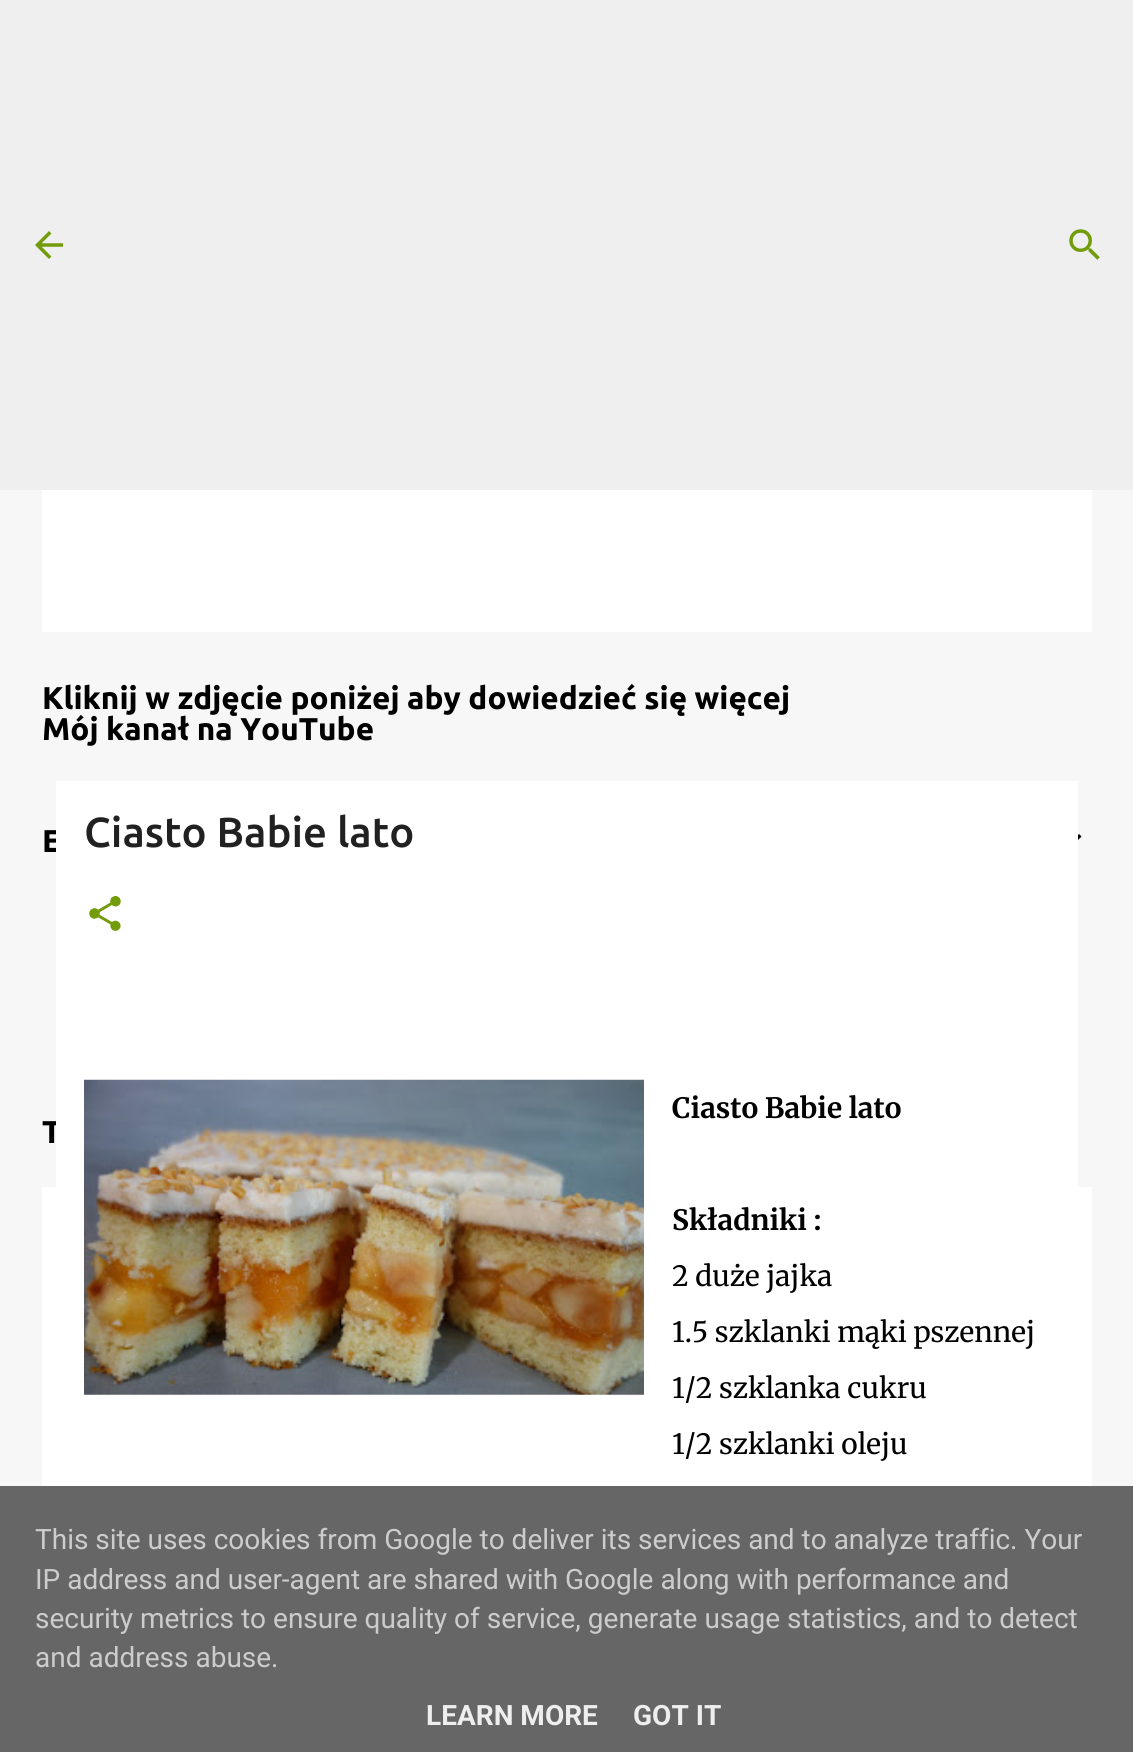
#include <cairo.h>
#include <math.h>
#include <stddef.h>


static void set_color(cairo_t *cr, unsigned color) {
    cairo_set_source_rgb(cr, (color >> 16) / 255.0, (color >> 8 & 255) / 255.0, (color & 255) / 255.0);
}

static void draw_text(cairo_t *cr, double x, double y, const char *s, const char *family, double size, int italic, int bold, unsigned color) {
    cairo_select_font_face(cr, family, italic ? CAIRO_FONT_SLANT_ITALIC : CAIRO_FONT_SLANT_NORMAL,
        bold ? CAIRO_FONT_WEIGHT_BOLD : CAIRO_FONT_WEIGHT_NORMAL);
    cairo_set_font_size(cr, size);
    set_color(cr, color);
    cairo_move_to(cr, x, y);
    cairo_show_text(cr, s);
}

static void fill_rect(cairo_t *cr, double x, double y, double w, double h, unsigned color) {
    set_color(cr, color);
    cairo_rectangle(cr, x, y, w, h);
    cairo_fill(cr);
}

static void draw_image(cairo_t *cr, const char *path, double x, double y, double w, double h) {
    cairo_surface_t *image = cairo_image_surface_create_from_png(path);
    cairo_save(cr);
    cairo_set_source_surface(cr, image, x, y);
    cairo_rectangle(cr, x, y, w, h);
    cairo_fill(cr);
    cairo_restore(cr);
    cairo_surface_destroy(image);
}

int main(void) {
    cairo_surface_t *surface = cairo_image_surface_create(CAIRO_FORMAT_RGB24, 1133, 1752);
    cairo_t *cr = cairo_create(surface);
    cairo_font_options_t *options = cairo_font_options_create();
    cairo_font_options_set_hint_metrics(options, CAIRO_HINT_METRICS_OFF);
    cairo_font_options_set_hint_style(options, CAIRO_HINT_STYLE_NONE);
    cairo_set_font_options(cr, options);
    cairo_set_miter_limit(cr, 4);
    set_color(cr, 0xF7F7F7);
    cairo_paint(cr);
    fill_rect(cr, 0, 0, 1133, 490, 0xEFEFEF);
    draw_image(cr, "assets/img1.png", 35, 231, 28, 28);
    draw_image(cr, "assets/img2.png", 1069, 229, 31, 31);
    fill_rect(cr, 42, 490, 1050, 142, 0xFFFFFF);
    draw_text(cr, 42, 709, "Kliknij w zdjęcie poniżej aby dowiedzieć się więcej", "Ubuntu", 31.5, 0, 1, 0x000000);
    draw_text(cr, 42, 740, "Mój kanał na YouTube", "Ubuntu", 31.5, 0, 1, 0x000000);
    draw_text(cr, 42, 852, "E", "Ubuntu", 31.5, 0, 1, 0x000000);
    draw_image(cr, "assets/img3.png", 1078, 834, 4, 6);
    fill_rect(cr, 42, 1187, 1050, 299, 0xFFFFFF);
    draw_text(cr, 42, 1143, "T", "Ubuntu", 31.5, 0, 1, 0x000000);
    fill_rect(cr, 56, 781, 1022, 406, 0xFFFFFF);
    draw_text(cr, 84, 847, "Ciasto Babie lato", "Ubuntu Medium", 42, 0, 0, 0x212121);
    draw_image(cr, "assets/img4.png", 89, 896, 32, 35);
    draw_image(cr, "assets/img5.png", 84, 1079, 560, 316);
    draw_text(cr, 672, 1118, "Ciasto Babie lato", "Merriweather", 28, 0, 1, 0x000000);
    draw_text(cr, 672, 1230, "Składniki :", "Merriweather", 28, 0, 1, 0x000000);
    draw_text(cr, 672, 1286, "2 duże jajka", "Merriweather", 28, 0, 0, 0x000000);
    draw_text(cr, 672, 1342, "1.5 szklanki mąki pszennej", "Merriweather", 28, 0, 0, 0x000000);
    draw_text(cr, 672, 1398, "1/2 szklanka cukru", "Merriweather", 28, 0, 0, 0x000000);
    draw_text(cr, 672, 1454, "1/2 szklanki oleju", "Merriweather", 28, 0, 0, 0x000000);
    fill_rect(cr, 0, 1486, 1133, 266, 0x666666);
    draw_text(cr, 35, 1549, "This site uses cookies from Google to deliver its services and to analyze traffic. Your", "Roboto", 28, 0, 0, 0xCCCCCC);
    draw_text(cr, 35, 1589, "IP address and user-agent are shared with Google along with performance and", "Roboto", 28, 0, 0, 0xCCCCCC);
    draw_text(cr, 35, 1628, "security metrics to ensure quality of service, generate usage statistics, and to detect", "Roboto", 28, 0, 0, 0xCCCCCC);
    draw_text(cr, 35, 1667, "and address abuse.", "Roboto", 28, 0, 0, 0xCCCCCC);
    draw_text(cr, 426, 1725, "LEARN MORE", "Roboto", 28, 0, 1, 0xEEEEEE);
    draw_text(cr, 633, 1725, "GOT IT", "Roboto", 28, 0, 1, 0xEEEEEE);
    cairo_surface_write_to_png(surface, "output.png");
    cairo_font_options_destroy(options);
    cairo_destroy(cr);
    cairo_surface_destroy(surface);
    return 0;
}
